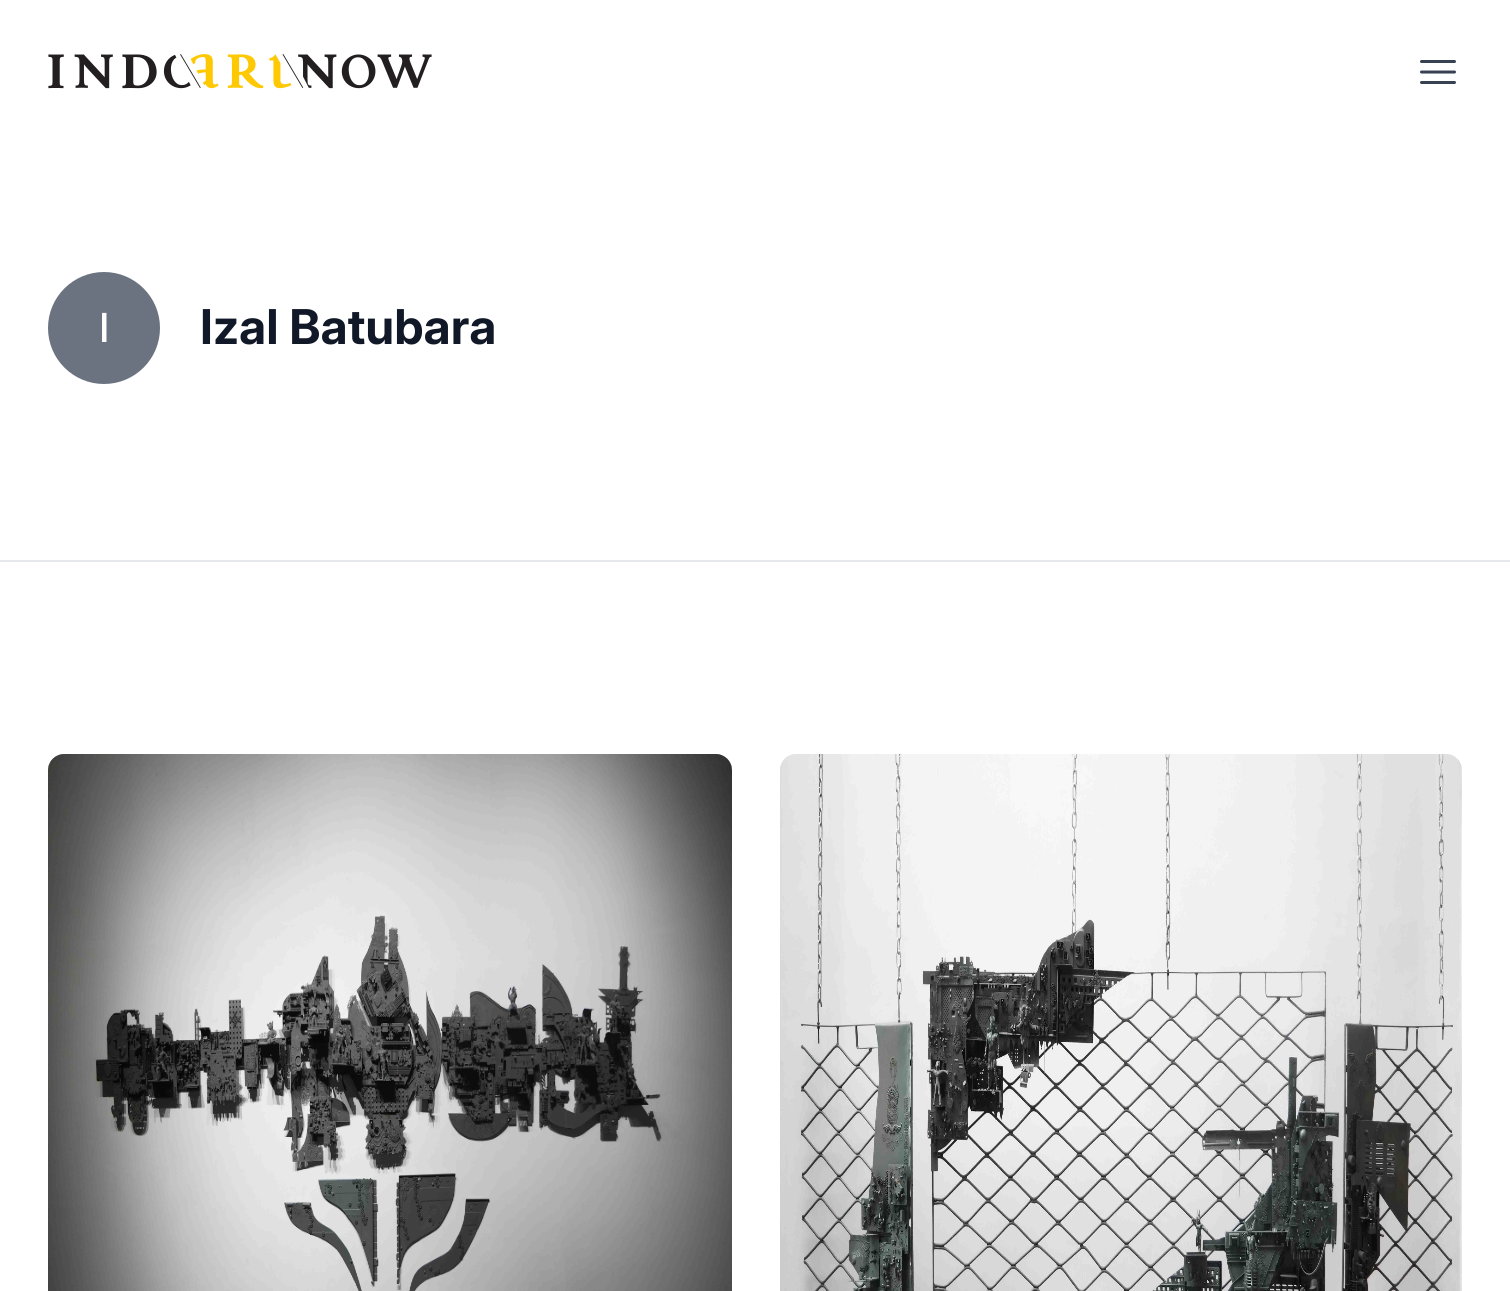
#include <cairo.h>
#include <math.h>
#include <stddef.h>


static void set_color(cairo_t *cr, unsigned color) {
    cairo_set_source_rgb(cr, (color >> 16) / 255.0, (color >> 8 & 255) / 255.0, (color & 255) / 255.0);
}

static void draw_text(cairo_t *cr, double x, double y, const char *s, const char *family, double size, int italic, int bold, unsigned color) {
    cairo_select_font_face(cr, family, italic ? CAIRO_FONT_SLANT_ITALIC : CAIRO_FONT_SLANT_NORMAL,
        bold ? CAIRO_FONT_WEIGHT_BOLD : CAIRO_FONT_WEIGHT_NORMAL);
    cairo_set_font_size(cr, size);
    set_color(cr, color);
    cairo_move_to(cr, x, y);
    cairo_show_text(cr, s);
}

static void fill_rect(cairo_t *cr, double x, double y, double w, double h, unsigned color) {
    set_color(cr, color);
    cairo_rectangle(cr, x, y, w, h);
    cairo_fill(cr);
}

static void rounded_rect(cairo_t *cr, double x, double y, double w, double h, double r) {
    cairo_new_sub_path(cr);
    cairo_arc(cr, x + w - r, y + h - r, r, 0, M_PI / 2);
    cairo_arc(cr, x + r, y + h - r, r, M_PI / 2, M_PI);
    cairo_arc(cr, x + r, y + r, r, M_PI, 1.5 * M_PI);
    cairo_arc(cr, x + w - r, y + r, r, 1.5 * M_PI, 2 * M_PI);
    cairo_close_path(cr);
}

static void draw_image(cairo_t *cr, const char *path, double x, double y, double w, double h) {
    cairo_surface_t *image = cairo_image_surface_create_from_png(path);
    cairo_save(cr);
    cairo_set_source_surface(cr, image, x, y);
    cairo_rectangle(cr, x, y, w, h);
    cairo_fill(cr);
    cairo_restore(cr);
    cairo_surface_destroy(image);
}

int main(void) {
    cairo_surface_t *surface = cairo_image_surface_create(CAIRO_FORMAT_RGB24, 1510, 1291);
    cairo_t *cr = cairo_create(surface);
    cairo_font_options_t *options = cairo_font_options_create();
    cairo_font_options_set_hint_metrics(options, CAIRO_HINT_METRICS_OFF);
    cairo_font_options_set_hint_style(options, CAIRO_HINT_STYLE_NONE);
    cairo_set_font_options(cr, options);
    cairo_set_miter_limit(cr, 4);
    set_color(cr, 0xFFFFFF);
    cairo_paint(cr);
    draw_image(cr, "assets/img1.png", 48, 54, 384, 35);
    cairo_new_path(cr);
    cairo_move_to(cr, 1421.5, 61.5);
    cairo_line_to(cr, 1454.5, 61.5);
    cairo_move_to(cr, 1421.5, 72);
    cairo_line_to(cr, 1454.5, 72);
    cairo_move_to(cr, 1421.5, 82.5);
    cairo_line_to(cr, 1454.5, 82.5);
    set_color(cr, 0x374151);
    cairo_set_line_width(cr, 3);
    cairo_set_line_cap(cr, CAIRO_LINE_CAP_ROUND);
    cairo_set_line_join(cr, CAIRO_LINE_JOIN_ROUND);
    cairo_stroke(cr);
    fill_rect(cr, 0, 560, 1510, 2, 0xE5E7EB);
    set_color(cr, 0x6B7280);
    cairo_arc(cr, 104, 328, 56, 0, 2 * M_PI);
    cairo_fill(cr);
    draw_text(cr, 99, 342, "I", "Inter Medium", 40, 0, 0, 0xFFFFFF);
    draw_text(cr, 200, 344, "Izal Batubara", "Inter", 48, 0, 1, 0x111827);
    set_color(cr, 0xF3F4F6);
    rounded_rect(cr, 48, 754, 684, 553, 16);
    cairo_fill(cr);
    draw_image(cr, "assets/img2.png", 48, 754, 684, 537);
    rounded_rect(cr, 780, 754, 682, 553, 16);
    cairo_fill(cr);
    draw_image(cr, "assets/img3.png", 780, 754, 682, 537);
    cairo_surface_write_to_png(surface, "output.png");
    cairo_font_options_destroy(options);
    cairo_destroy(cr);
    cairo_surface_destroy(surface);
    return 0;
}
